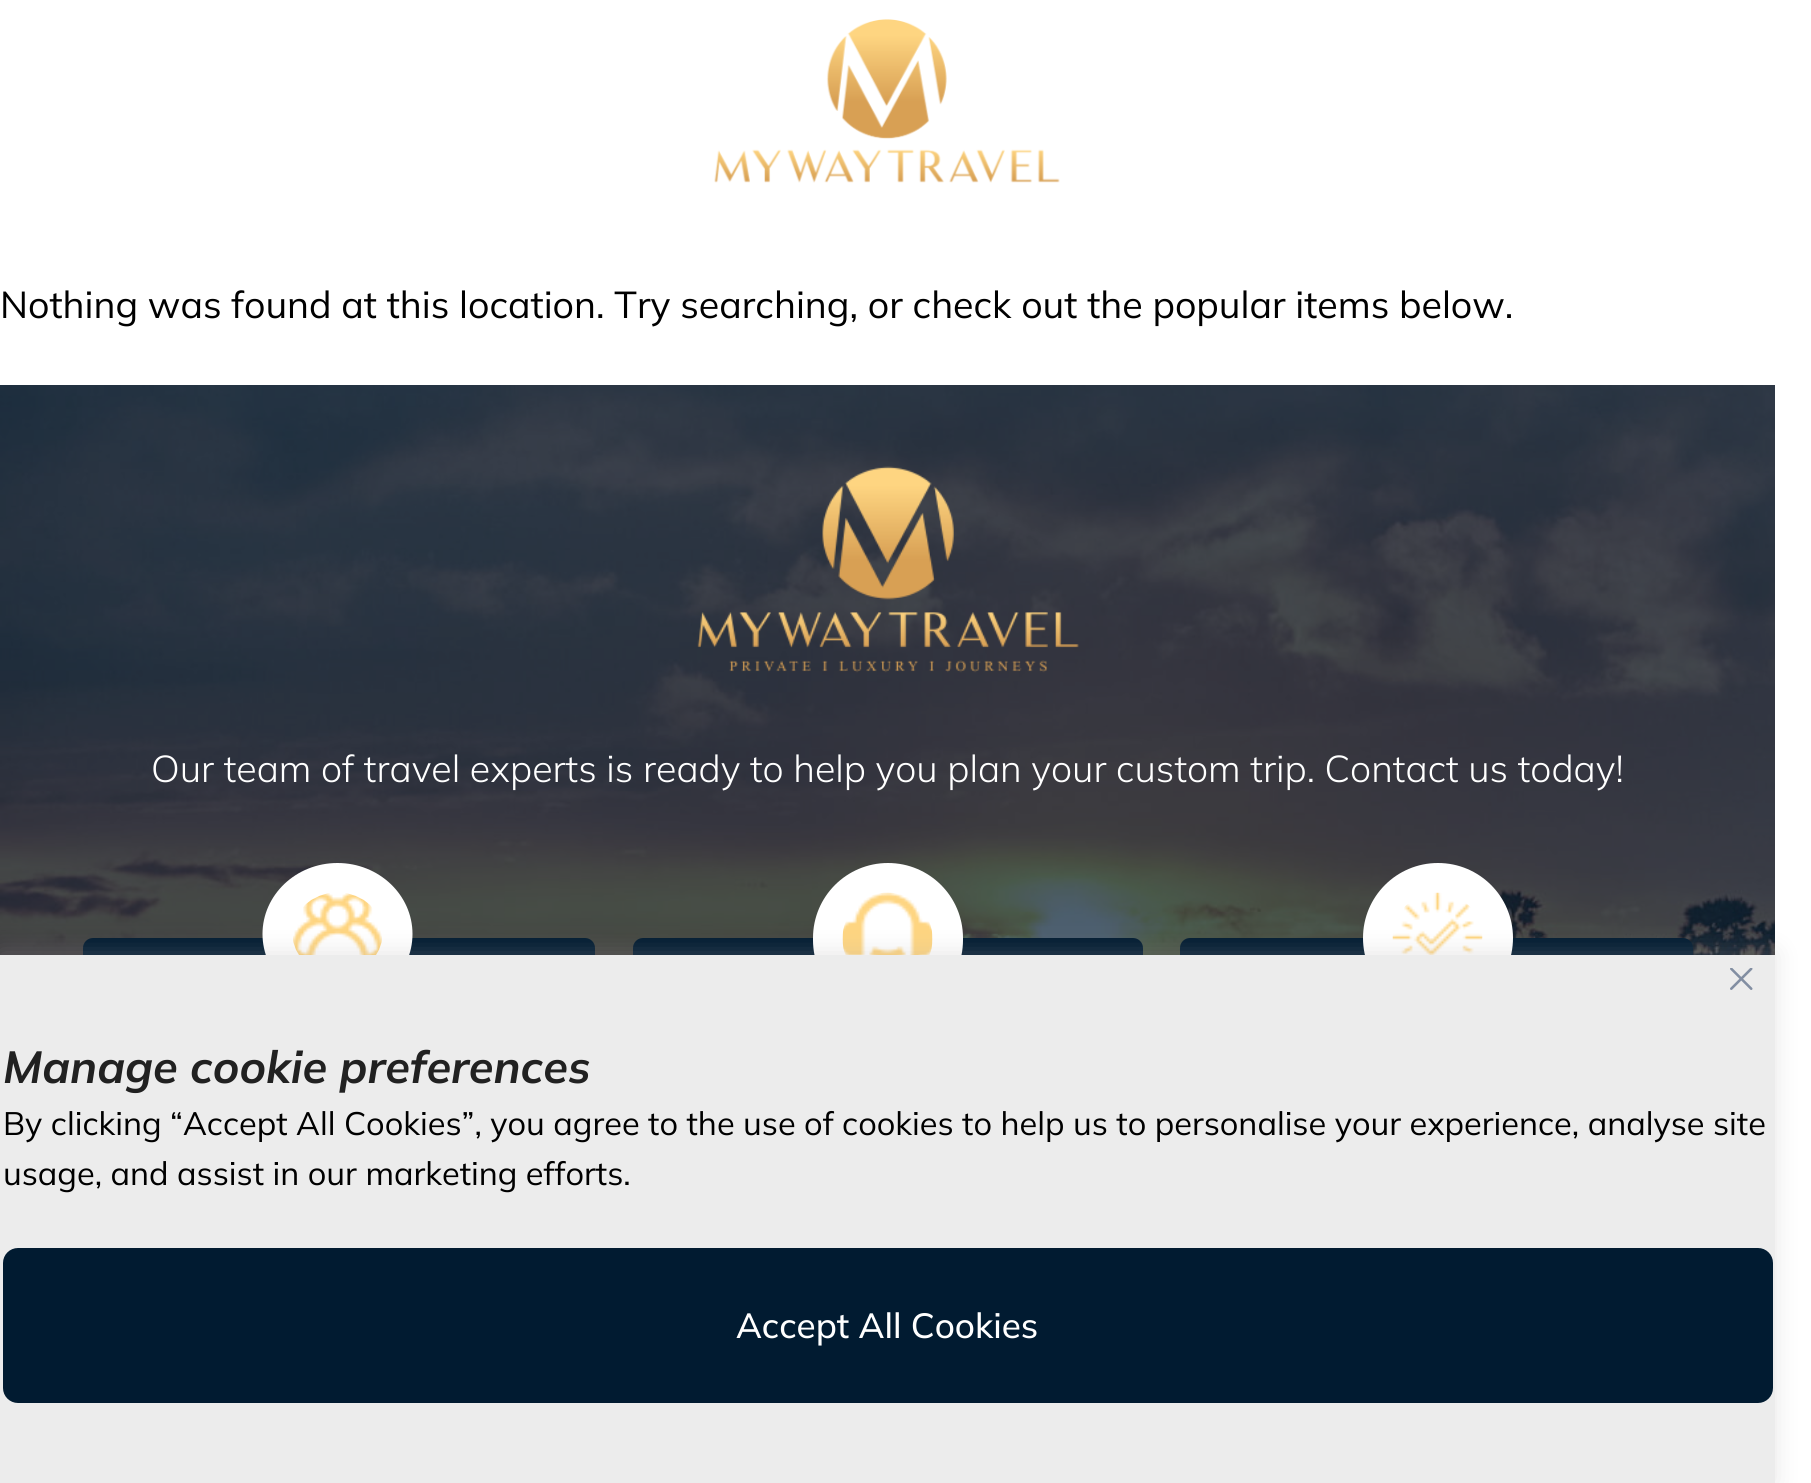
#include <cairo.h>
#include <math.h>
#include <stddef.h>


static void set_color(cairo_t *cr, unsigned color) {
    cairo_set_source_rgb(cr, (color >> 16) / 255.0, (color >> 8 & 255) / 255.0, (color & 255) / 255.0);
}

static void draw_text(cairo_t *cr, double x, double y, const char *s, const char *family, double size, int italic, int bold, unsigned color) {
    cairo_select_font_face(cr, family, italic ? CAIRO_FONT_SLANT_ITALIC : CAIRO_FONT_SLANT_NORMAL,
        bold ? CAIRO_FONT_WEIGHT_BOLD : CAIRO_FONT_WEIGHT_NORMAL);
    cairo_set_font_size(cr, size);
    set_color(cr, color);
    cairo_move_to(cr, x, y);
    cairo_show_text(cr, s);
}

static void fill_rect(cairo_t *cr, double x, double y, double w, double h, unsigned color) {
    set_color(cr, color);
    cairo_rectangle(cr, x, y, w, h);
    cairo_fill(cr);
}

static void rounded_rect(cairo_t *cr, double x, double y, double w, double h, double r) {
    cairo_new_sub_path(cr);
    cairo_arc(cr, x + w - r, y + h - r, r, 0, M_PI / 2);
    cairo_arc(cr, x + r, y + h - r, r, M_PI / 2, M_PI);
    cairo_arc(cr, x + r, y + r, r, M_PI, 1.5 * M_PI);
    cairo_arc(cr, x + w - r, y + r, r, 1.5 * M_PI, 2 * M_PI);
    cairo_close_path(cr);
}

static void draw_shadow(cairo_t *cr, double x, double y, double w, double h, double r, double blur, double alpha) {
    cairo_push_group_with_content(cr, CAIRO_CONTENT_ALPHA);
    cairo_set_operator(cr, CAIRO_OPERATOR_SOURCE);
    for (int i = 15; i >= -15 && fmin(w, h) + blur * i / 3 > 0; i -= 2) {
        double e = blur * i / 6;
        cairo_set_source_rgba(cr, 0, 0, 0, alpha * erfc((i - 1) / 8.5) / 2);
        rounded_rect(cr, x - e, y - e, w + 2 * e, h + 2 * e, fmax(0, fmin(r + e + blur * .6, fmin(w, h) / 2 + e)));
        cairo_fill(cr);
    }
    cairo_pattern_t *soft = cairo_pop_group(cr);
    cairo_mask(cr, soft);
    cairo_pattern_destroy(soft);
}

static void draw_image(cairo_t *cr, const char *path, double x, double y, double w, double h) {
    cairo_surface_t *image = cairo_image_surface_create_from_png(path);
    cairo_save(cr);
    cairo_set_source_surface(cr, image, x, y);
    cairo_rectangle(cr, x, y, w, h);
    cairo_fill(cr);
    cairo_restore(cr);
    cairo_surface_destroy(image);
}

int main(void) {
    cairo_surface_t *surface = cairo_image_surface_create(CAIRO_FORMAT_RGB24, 1811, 1483);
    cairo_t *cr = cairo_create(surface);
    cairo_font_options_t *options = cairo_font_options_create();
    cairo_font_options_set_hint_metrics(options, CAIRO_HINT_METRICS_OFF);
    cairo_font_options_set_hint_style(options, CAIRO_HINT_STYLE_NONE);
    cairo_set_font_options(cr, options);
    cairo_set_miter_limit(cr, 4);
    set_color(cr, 0xFFFFFF);
    cairo_paint(cr);
    draw_image(cr, "assets/img1.png", 714, 19, 346, 164);
    draw_text(cr, 0, 318, "Nothing was found at this location. Try searching, or check out the popular items below.", "Mulish", 37.5, 0, 0, 0x000000);
    draw_image(cr, "assets/img2.png", 0, 385, 1775, 570);
    draw_image(cr, "assets/img3.png", 697, 466, 382, 207);
    draw_text(cr, 151, 782, "Our team of travel experts is ready to help you plan your custom trip. Contact us today!", "Mulish Light", 37.5, 0, 0, 0xFFFFFF);
    set_color(cr, 0x011B31);
    rounded_rect(cr, 83, 938, 512, 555, 10);
    cairo_fill(cr);
    set_color(cr, 0xFFFFFF);
    cairo_new_path(cr);
    cairo_move_to(cr, 337.5, 863);
    cairo_curve_to(cr, 379, 863, 412.5, 895, 412.5, 934);
    cairo_curve_to(cr, 412.5, 973, 379, 1005, 337.5, 1005);
    cairo_curve_to(cr, 296, 1005, 262.5, 973, 262.5, 934);
    cairo_curve_to(cr, 262.5, 895, 296, 863, 337.5, 863);
    cairo_close_path(cr);
    cairo_fill(cr);
    draw_image(cr, "assets/img4.png", 293, 893, 89, 62);
    set_color(cr, 0x011B31);
    rounded_rect(cr, 633, 938, 510, 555, 10);
    cairo_fill(cr);
    set_color(cr, 0xFFFFFF);
    rounded_rect(cr, 813, 863, 150, 152, 75);
    cairo_fill(cr);
    draw_image(cr, "assets/img5.png", 842, 892, 91, 63);
    set_color(cr, 0x011B31);
    rounded_rect(cr, 1180, 938, 513, 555, 10);
    cairo_fill(cr);
    set_color(cr, 0xFFFFFF);
    cairo_arc(cr, 1438, 938, 75, 0, 2 * M_PI);
    cairo_fill(cr);
    draw_image(cr, "assets/img6.png", 1392, 892, 91, 63);
    set_color(cr, 0xACABAB);
    draw_shadow(cr, 0, 953, 1775, 530, 0, 12.5, 0.3);
    fill_rect(cr, 0, 955, 1775, 528, 0xECECEC);
    draw_image(cr, "assets/img7.png", 1730, 968, 23, 22);
    draw_text(cr, 3, 1083, "Manage cookie preferences", "Mulish", 45, 1, 1, 0x212121);
    draw_text(cr, 3, 1135, "By clicking “Accept All Cookies”, you agree to the use of cookies to help us to personalise your experience, analyse site", "Mulish", 32.5, 0, 0, 0x000000);
    draw_text(cr, 3, 1185, "usage, and assist in our marketing efforts.", "Mulish", 32.5, 0, 0, 0x000000);
    set_color(cr, 0x011B31);
    rounded_rect(cr, 4.5, 1249.5, 1767, 152, 13.5);
    cairo_fill_preserve(cr);
    cairo_set_line_width(cr, 3);
    cairo_stroke(cr);
    draw_text(cr, 736, 1338, "Accept All Cookies", "Mulish Medium", 35, 0, 0, 0xFFFFFF);
    cairo_surface_write_to_png(surface, "output.png");
    cairo_font_options_destroy(options);
    cairo_destroy(cr);
    cairo_surface_destroy(surface);
    return 0;
}
